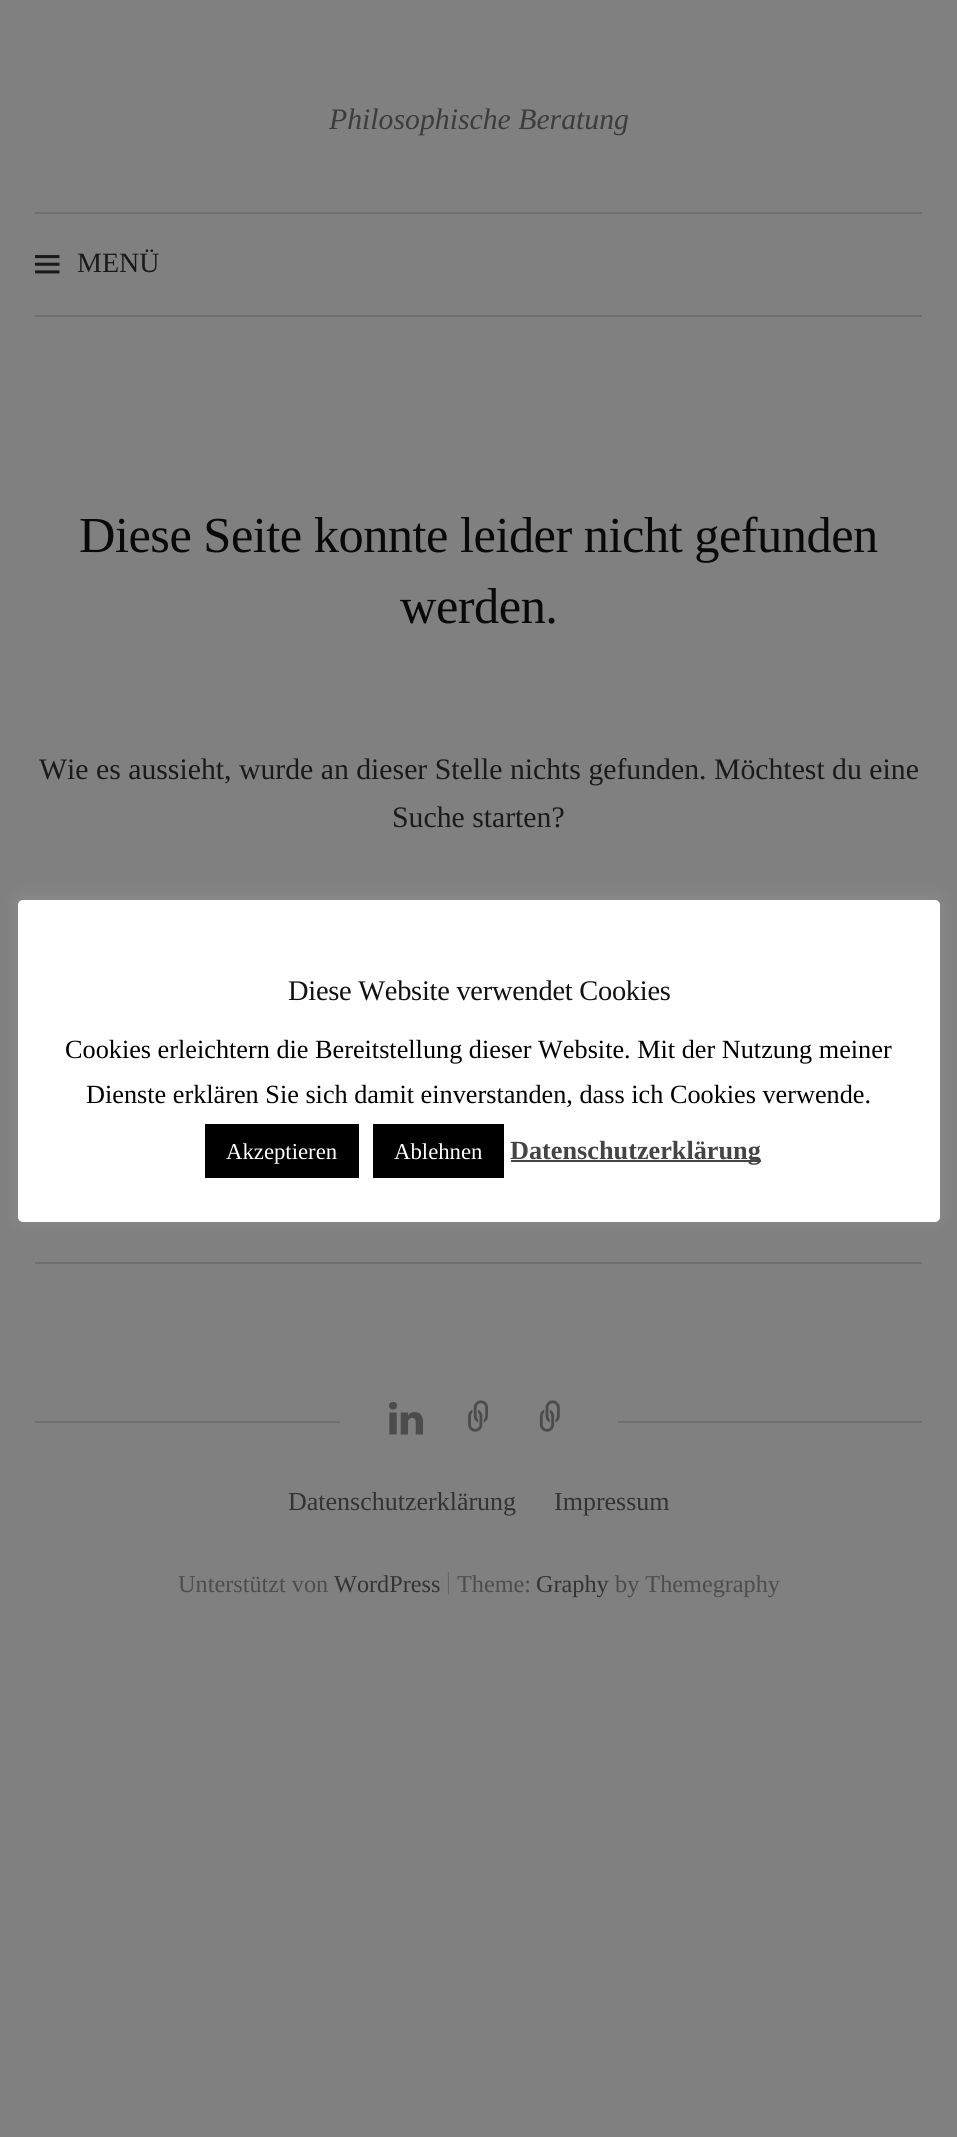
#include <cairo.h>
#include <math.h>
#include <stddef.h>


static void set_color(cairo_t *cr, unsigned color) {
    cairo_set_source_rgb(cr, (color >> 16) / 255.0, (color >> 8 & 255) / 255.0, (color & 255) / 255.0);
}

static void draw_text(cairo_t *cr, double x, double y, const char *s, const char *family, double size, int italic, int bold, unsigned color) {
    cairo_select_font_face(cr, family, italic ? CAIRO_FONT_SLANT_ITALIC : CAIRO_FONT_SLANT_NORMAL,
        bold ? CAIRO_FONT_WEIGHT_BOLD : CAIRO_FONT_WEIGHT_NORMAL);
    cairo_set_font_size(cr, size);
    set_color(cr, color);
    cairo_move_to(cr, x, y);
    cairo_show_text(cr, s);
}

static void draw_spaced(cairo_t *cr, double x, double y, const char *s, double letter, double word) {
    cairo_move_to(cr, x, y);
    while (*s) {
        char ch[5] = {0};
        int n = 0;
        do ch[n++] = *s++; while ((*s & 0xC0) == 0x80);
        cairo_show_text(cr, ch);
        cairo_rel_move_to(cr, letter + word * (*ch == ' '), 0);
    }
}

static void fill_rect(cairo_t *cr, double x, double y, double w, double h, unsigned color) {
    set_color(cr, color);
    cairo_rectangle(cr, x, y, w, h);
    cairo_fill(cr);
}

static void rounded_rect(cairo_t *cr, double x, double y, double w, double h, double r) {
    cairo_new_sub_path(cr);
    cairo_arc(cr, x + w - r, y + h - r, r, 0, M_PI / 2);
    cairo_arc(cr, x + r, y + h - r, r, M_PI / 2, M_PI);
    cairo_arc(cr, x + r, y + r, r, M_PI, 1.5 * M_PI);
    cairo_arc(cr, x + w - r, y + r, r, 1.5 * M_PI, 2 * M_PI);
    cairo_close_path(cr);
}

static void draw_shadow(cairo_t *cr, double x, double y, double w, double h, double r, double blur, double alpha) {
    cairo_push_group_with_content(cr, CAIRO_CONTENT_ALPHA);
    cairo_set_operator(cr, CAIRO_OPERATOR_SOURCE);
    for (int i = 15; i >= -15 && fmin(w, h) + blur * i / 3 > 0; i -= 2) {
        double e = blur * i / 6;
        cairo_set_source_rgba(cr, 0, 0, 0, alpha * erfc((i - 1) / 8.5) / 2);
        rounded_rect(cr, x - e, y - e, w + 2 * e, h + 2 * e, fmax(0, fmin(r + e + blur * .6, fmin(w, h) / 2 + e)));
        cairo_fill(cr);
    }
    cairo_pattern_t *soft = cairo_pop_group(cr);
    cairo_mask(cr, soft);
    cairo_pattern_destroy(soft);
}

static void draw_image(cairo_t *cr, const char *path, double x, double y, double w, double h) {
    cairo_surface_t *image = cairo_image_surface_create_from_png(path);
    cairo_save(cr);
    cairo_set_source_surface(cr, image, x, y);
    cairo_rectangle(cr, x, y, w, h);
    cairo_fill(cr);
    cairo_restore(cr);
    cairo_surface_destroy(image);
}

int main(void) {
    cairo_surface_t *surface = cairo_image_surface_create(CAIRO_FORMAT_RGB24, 957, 2137);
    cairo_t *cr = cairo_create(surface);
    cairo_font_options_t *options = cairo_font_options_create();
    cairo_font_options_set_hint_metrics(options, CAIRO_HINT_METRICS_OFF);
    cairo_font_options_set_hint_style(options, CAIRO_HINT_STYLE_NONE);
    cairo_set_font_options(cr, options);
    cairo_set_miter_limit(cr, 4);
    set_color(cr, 0x808080);
    cairo_paint(cr);
    draw_text(cr, 329, 129, "Philosophische Beratung", "Liberation Serif", 29.75, 1, 0, 0x3C3C3C);
    fill_rect(cr, 35, 212, 887, 2, 0x6F6F6F);
    fill_rect(cr, 35, 315, 887, 2, 0x6F6F6F);
    draw_image(cr, "assets/img1.png", 35, 255, 25, 19);
    draw_text(cr, 77, 272, "MENÜ", "Liberation Serif", 28, 0, 0, 0x1A1A1A);
    cairo_set_font_size(cr, 50.4);
    set_color(cr, 0x090909);
    draw_spaced(cr, 79, 552, "Diese Seite konnte leider nicht gefunden", -0.5, 0);
    draw_spaced(cr, 400, 623, "werden.", -0.5, 0);
    draw_text(cr, 39, 779, "Wie es aussieht, wurde an dieser Stelle nichts gefunden. Möchtest du eine", "Liberation Serif", 29.75, 0, 0, 0x1A1A1A);
    draw_text(cr, 392, 827, "Suche starten?", "Liberation Serif", 29.75, 0, 0, 0x1A1A1A);
    fill_rect(cr, 35, 1262, 887, 2, 0x6F6F6F);
    fill_rect(cr, 35, 1421, 887, 2, 0x6F6F6F);
    fill_rect(cr, 340, 1421, 278, 2, 0x808080);
    draw_image(cr, "assets/img2.png", 389, 1402, 35, 33);
    draw_image(cr, "assets/img3.png", 468, 1400, 20, 32);
    draw_image(cr, "assets/img4.png", 539, 1400, 21, 32);
    draw_text(cr, 288, 1510, "Datenschutzerklärung", "Liberation Serif", 26, 0, 0, 0x333333);
    draw_text(cr, 554, 1510, "Impressum", "Liberation Serif", 26, 0, 0, 0x333333);
    draw_text(cr, 178, 1592, "Unterstützt von", "Liberation Serif", 24.25, 0, 0, 0x4D4D4D);
    draw_text(cr, 334, 1592, "WordPress", "Liberation Serif", 24.25, 0, 0, 0x333333);
    draw_text(cr, 446, 1589, "|", "Liberation Serif", 24.25, 0, 0, 0x666666);
    draw_text(cr, 457, 1592, "Theme:", "Liberation Serif", 24.25, 0, 0, 0x4D4D4D);
    draw_text(cr, 536, 1592, "Graphy", "Liberation Serif", 24.25, 0, 0, 0x333333);
    draw_text(cr, 615, 1592, "by Themegraphy", "Liberation Serif", 24.25, 0, 0, 0x4D4D4D);
    set_color(cr, 0xACABAB);
    draw_shadow(cr, 18, 898, 922, 322, 5, 9, 0.3);
    set_color(cr, 0xFFFFFF);
    rounded_rect(cr, 18, 900, 922, 322, 5);
    cairo_fill(cr);
    cairo_set_font_size(cr, 28.4);
    set_color(cr, 0x111111);
    draw_spaced(cr, 288, 1000, "Diese Website verwendet Cookies", -0.25, 0);
    draw_text(cr, 65, 1058, "Cookies erleichtern die Bereitstellung dieser Website. Mit der Nutzung meiner", "Liberation Serif", 26.25, 0, 0, 0x000000);
    draw_text(cr, 86, 1103, "Dienste erklären Sie sich damit einverstanden, dass ich Cookies verwende.", "Liberation Serif", 26.25, 0, 0, 0x000000);
    fill_rect(cr, 205, 1124, 154, 54, 0x000000);
    draw_text(cr, 226, 1159, "Akzeptieren", "Liberation Serif", 22.75, 0, 0, 0xFFFFFF);
    fill_rect(cr, 373, 1124, 131, 54, 0x000000);
    draw_text(cr, 394, 1159, "Ablehnen", "Liberation Serif", 22.75, 0, 0, 0xFFFFFF);
    fill_rect(cr, 511, 1160, 250, 2, 0x444444);
    draw_text(cr, 510, 1159, "Datenschutzerklärung", "Liberation Serif", 26.25, 0, 1, 0x444444);
    cairo_surface_write_to_png(surface, "output.png");
    cairo_font_options_destroy(options);
    cairo_destroy(cr);
    cairo_surface_destroy(surface);
    return 0;
}
